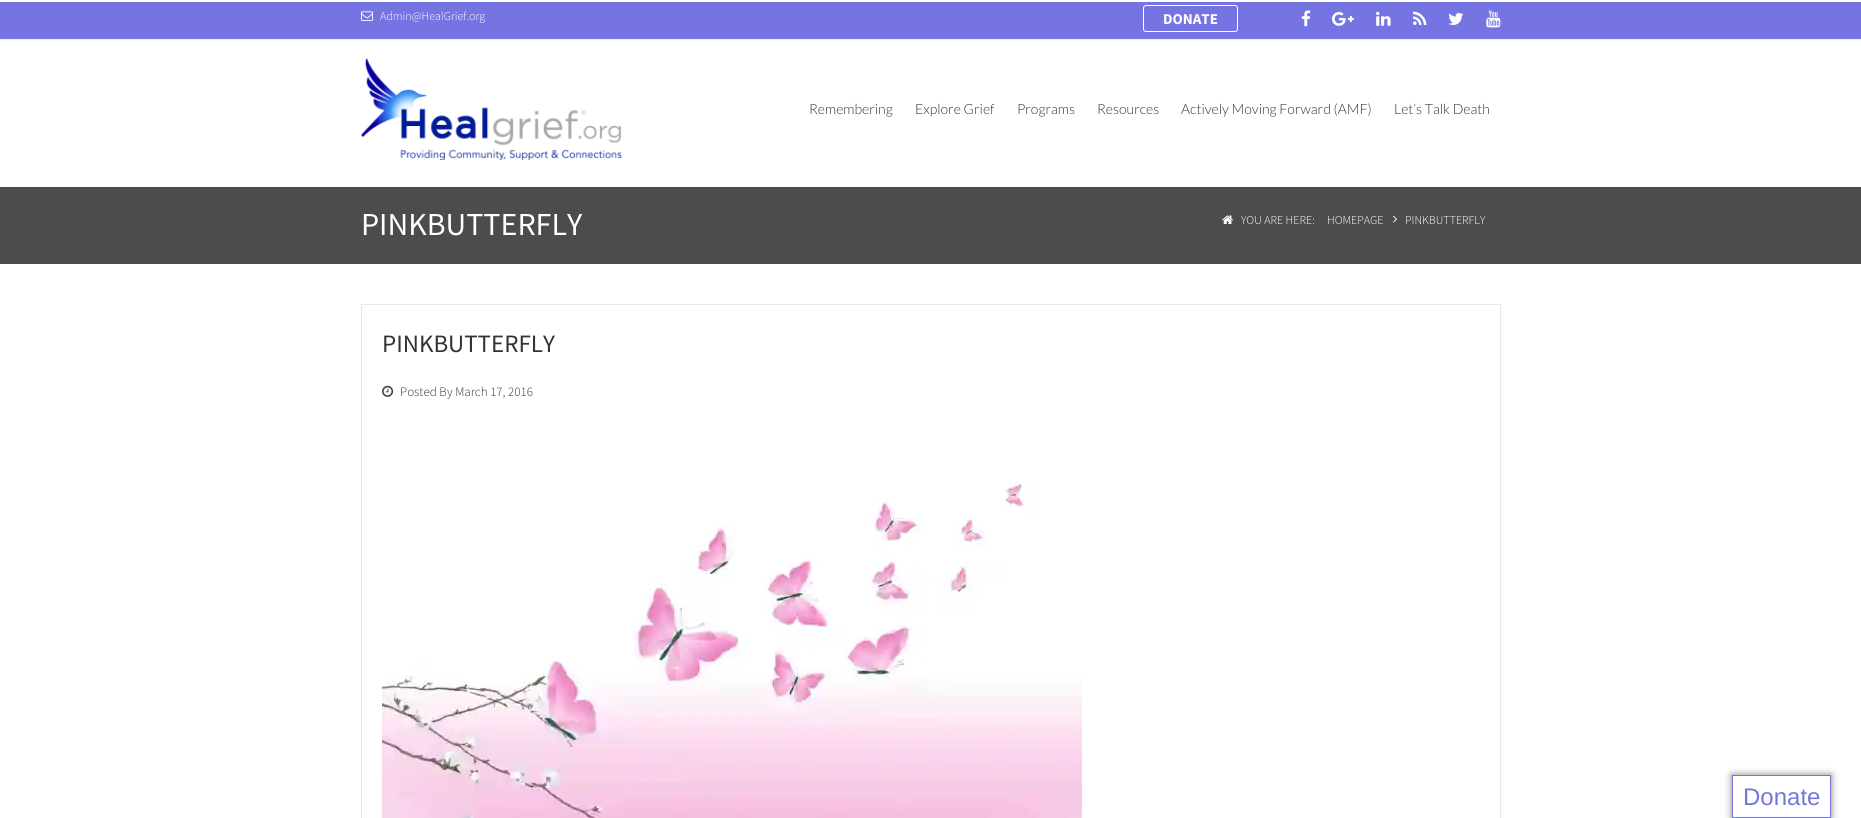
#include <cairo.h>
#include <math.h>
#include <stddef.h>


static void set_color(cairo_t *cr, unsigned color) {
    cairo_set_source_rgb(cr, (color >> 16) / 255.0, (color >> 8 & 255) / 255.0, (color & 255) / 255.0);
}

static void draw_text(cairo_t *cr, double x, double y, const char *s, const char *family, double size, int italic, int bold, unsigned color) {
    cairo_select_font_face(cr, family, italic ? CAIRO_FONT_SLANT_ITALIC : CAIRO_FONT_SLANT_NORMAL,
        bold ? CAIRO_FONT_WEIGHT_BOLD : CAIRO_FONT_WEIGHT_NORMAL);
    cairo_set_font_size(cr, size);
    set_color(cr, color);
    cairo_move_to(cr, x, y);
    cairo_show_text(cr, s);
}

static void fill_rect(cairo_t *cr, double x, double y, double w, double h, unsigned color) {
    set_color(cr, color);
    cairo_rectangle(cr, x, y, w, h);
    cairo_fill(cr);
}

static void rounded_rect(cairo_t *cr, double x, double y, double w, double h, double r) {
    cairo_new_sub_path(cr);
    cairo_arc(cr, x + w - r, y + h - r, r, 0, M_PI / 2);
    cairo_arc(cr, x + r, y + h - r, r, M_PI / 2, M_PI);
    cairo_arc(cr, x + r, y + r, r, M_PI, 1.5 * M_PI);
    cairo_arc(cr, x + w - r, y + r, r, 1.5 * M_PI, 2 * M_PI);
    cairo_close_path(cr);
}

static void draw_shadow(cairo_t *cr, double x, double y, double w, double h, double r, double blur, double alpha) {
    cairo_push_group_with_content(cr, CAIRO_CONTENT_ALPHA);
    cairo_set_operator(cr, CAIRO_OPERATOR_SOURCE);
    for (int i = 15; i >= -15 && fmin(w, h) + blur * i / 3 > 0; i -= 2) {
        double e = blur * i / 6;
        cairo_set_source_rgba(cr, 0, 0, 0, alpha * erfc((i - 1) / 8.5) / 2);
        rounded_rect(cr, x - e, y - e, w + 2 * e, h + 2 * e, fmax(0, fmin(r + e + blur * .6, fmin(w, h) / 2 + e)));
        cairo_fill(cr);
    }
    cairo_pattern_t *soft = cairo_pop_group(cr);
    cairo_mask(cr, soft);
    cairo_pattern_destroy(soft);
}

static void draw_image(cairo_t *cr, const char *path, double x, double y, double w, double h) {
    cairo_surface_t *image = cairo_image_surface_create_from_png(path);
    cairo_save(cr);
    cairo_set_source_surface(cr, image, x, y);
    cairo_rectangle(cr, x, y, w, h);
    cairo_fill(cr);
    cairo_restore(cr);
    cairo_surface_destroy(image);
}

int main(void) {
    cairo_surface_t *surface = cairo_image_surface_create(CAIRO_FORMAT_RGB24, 1861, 818);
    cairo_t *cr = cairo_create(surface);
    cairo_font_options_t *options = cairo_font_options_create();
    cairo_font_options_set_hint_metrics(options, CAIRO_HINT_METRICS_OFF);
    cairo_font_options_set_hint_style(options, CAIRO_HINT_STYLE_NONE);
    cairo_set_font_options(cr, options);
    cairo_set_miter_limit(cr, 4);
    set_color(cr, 0xFFFFFF);
    cairo_paint(cr);
    fill_rect(cr, 0, 2, 1861, 37, 0x7673E3);
    fill_rect(cr, 0, 39, 1861, 1, 0xEEEEEE);
    draw_image(cr, "assets/img1.png", 361, 11, 12, 10);
    draw_text(cr, 380, 20, "Admin@HealGrief.org", "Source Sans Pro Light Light", 12, 0, 0, 0xFFFFFF);
    rounded_rect(cr, 1143.5, 5.5, 94, 26, 2.5);
    cairo_set_line_width(cr, 1);
    cairo_stroke(cr);
    draw_text(cr, 1163, 24, "DONATE", "Source Sans Pro", 15, 0, 1, 0xFFFFFF);
    draw_image(cr, "assets/img2.png", 1301, 10, 10, 17);
    draw_image(cr, "assets/img3.png", 1332, 12, 22, 14);
    draw_image(cr, "assets/img4.png", 1376, 11, 15, 15);
    draw_image(cr, "assets/img5.png", 1413, 11, 14, 14);
    draw_image(cr, "assets/img6.png", 1448, 12, 16, 13);
    draw_image(cr, "assets/img7.png", 1486, 10, 15, 18);
    draw_image(cr, "assets/img8.png", 361, 58, 261, 102);
    draw_text(cr, 809, 114, "Remembering", "Lato Light", 14, 0, 0, 0x333333);
    draw_text(cr, 915, 114, "Explore Grief", "Lato Light", 14, 0, 0, 0x333333);
    draw_text(cr, 1017, 114, "Programs", "Lato Light", 14, 0, 0, 0x333333);
    draw_text(cr, 1097, 114, "Resources", "Lato Light", 14, 0, 0, 0x333333);
    draw_text(cr, 1181, 114, "Actively Moving Forward (AMF)", "Lato Light", 14, 0, 0, 0x333333);
    draw_text(cr, 1394, 114, "Let’s Talk Death", "Lato Light", 14, 0, 0, 0x333333);
    cairo_set_source_rgba(cr, 0, 0, 0, 0.7);
    cairo_rectangle(cr, 0, 187, 1861, 77);
    cairo_fill(cr);
    draw_text(cr, 361, 235, "PINKBUTTERFLY", "Source Sans Pro", 32, 0, 0, 0xFFFFFF);
    draw_image(cr, "assets/img9.png", 1222, 215, 11, 9);
    draw_text(cr, 1241, 224, "YOU ARE HERE:", "Source Sans Pro Light Light", 12, 0, 0, 0xFFFFFF);
    draw_text(cr, 1327, 224, "HOMEPAGE", "Source Sans Pro Light Light", 12, 0, 0, 0xFFFFFF);
    draw_image(cr, "assets/img10.png", 1393, 215, 4, 8);
    draw_text(cr, 1405, 224, "PINKBUTTERFLY", "Source Sans Pro Light Light", 12, 0, 0, 0xFFFFFF);
    cairo_rectangle(cr, 361.5, 304.5, 1139, 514);
    set_color(cr, 0xE8E8E8);
    cairo_stroke(cr);
    draw_text(cr, 382, 352, "PINKBUTTERFLY", "Source Sans Pro", 25, 0, 0, 0x333333);
    draw_image(cr, "assets/img11.png", 382, 385, 12, 12);
    draw_text(cr, 400, 396, "Posted By March 17, 2016", "Source Sans Pro Light Light", 13, 0, 0, 0x333333);
    draw_image(cr, "assets/img12.png", 382, 482, 700, 336);
    cairo_save(cr);
    cairo_set_fill_rule(cr, CAIRO_FILL_RULE_EVEN_ODD);
    cairo_new_path(cr);
    cairo_move_to(cr, 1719, 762);
    cairo_line_to(cr, 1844, 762);
    cairo_line_to(cr, 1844, 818);
    cairo_line_to(cr, 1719, 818);
    cairo_close_path(cr);
    cairo_move_to(cr, 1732, 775);
    cairo_line_to(cr, 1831, 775);
    cairo_line_to(cr, 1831, 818);
    cairo_line_to(cr, 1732, 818);
    cairo_close_path(cr);
    cairo_clip(cr);
    set_color(cr, 0x000000);
    draw_shadow(cr, 1732, 775, 99, 43, 0, 4, 0.5);
    cairo_restore(cr);
    cairo_rectangle(cr, 1732.5, 775.5, 98, 42);
    set_color(cr, 0x7576DC);
    cairo_stroke(cr);
    draw_text(cr, 1743, 805, "Donate", "Liberation Sans", 24, 0, 0, 0x7576DC);
    cairo_surface_write_to_png(surface, "output.png");
    cairo_font_options_destroy(options);
    cairo_destroy(cr);
    cairo_surface_destroy(surface);
    return 0;
}
